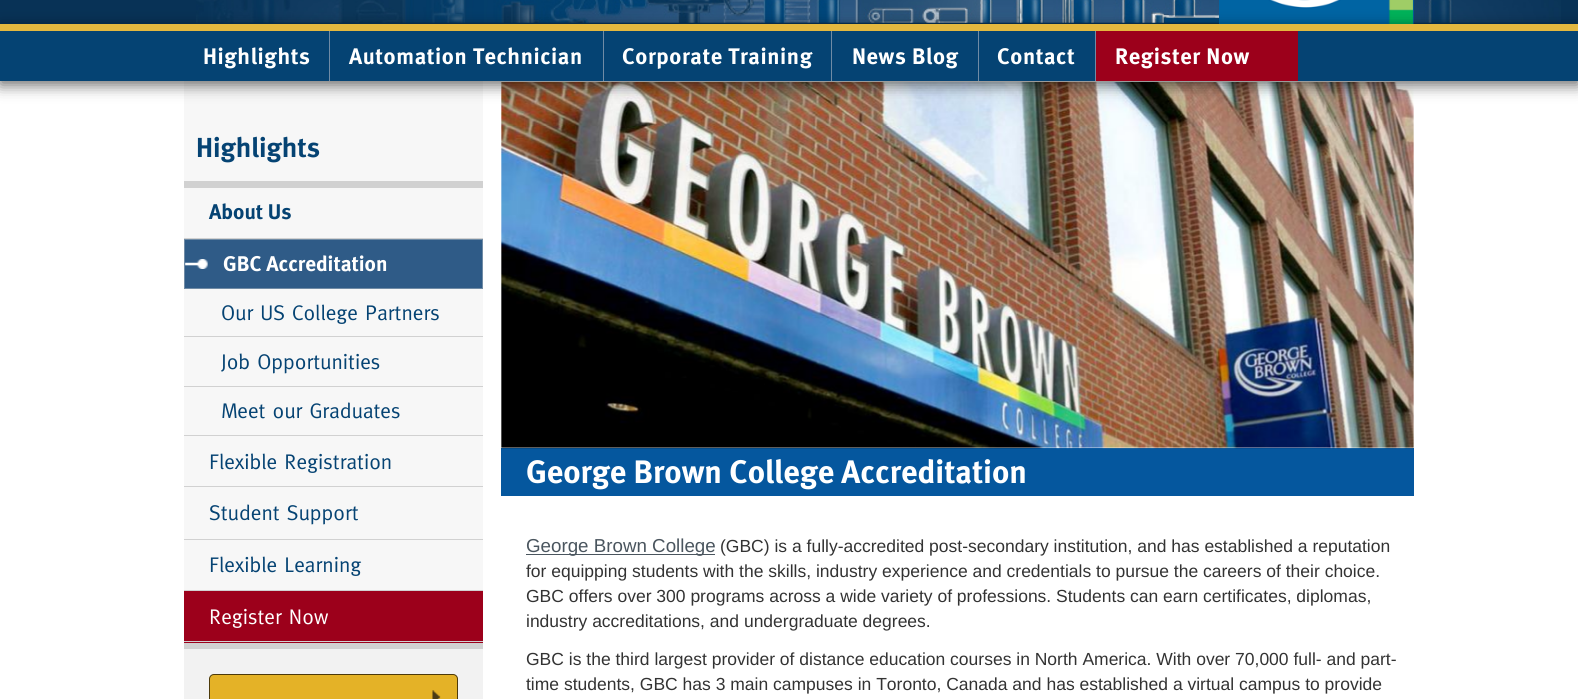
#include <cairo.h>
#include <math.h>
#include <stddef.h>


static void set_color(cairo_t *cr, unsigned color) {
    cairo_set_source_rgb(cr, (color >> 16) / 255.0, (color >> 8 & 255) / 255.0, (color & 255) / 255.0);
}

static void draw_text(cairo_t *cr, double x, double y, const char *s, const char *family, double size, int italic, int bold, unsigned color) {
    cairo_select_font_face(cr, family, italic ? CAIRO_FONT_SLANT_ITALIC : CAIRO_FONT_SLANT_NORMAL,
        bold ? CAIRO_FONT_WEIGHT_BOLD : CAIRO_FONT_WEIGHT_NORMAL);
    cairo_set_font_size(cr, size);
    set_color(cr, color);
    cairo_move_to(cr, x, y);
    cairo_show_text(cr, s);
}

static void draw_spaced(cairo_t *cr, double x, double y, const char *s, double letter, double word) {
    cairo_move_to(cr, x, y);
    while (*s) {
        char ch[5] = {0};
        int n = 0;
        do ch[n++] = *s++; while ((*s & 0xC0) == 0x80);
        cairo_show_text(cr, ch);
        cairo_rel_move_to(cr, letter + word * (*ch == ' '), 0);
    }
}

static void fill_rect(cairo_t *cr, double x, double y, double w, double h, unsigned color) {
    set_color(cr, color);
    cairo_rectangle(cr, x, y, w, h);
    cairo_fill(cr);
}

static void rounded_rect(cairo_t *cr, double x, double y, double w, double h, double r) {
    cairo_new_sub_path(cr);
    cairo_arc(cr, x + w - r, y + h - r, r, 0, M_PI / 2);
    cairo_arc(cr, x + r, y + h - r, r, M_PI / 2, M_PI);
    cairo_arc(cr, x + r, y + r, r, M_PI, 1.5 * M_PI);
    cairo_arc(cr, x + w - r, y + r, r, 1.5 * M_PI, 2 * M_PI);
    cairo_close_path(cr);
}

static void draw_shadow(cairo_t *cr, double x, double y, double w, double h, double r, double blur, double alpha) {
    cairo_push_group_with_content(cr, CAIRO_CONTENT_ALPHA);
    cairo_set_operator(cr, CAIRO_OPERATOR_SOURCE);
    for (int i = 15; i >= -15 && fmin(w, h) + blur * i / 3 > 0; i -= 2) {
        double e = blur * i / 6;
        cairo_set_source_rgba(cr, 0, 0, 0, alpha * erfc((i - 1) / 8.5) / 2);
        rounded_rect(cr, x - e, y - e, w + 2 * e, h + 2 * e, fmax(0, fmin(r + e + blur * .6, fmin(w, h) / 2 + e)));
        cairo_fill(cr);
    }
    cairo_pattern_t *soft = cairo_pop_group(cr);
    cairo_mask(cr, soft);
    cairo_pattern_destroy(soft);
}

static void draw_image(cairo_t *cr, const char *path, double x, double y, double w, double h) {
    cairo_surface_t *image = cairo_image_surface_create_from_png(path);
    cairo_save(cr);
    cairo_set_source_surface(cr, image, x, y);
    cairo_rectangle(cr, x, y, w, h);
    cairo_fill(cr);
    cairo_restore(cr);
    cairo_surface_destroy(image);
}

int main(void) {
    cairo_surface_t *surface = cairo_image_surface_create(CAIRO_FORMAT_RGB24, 1578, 699);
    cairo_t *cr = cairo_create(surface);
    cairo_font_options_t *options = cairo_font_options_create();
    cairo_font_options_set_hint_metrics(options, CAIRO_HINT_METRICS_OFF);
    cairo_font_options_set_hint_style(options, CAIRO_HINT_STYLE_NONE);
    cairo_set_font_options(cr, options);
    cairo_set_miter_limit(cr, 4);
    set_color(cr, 0xFFFFFF);
    cairo_paint(cr);
    fill_rect(cr, 0, 0, 1578, 24, 0x083256);
    draw_image(cr, "assets/img1.png", 196, 0, 1365, 23);
    draw_image(cr, "assets/img2.png", 1219, 0, 195, 24);
    fill_rect(cr, 184, 81, 299, 100, 0xF7F7F7);
    fill_rect(cr, 501, 448, 913, 48, 0x05579E);
    draw_image(cr, "assets/img5.png", 501, 82, 913, 367);
    set_color(cr, 0x000000);
    draw_shadow(cr, 0, 28, 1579, 57, 0, 7.5, 0.59);
    fill_rect(cr, 0, 31, 1578, 50, 0x054373);
    fill_rect(cr, 0, 24, 1578, 7, 0xE4B83F);
    fill_rect(cr, 329, 31, 1, 50, 0x708BA5);
    cairo_select_font_face(cr, "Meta", CAIRO_FONT_SLANT_NORMAL, CAIRO_FONT_WEIGHT_BOLD);
    cairo_set_font_size(cr, 22.5);
    set_color(cr, 0xFFFFFF);
    draw_spaced(cr, 203, 64, "Highlights", 0.6, 0);
    fill_rect(cr, 603, 31, 1, 50, 0x708BA5);
    set_color(cr, 0xFFFFFF);
    draw_spaced(cr, 349, 64, "Automation Technician", 0.6, 0);
    fill_rect(cr, 831, 31, 1, 50, 0x708BA5);
    set_color(cr, 0xFFFFFF);
    draw_spaced(cr, 622, 64, "Corporate Training", 0.6, 0);
    fill_rect(cr, 978, 31, 1, 50, 0x708BA5);
    set_color(cr, 0xFFFFFF);
    draw_spaced(cr, 852, 64, "News Blog", 0.6, 0);
    fill_rect(cr, 1095, 31, 1, 50, 0x708BA5);
    set_color(cr, 0xFFFFFF);
    draw_spaced(cr, 997, 64, "Contact", 0.6, 0);
    fill_rect(cr, 1096, 31, 202, 50, 0x9C001B);
    set_color(cr, 0xFFFFFF);
    draw_spaced(cr, 1115, 64, "Register Now", 0.6, 0);
    fill_rect(cr, 184, 649, 299, 50, 0xF2F2F2);
    fill_rect(cr, 184, 181, 299, 7, 0xD1D1D1);
    draw_text(cr, 196, 157, "Highlights", "Meta", 27.5, 0, 1, 0x054373);
    fill_rect(cr, 184, 188, 299, 402, 0xF7F7F7);
    fill_rect(cr, 184, 238, 299, 1, 0xD1D1D1);
    draw_text(cr, 209, 219, "About Us", "Meta", 21.25, 0, 1, 0x054373);
    fill_rect(cr, 185, 240, 297, 48, 0x2F5B87);
    draw_image(cr, "assets/img3.png", 185, 259, 23, 10);
    cairo_rectangle(cr, 184.5, 239.5, 298, 49);
    set_color(cr, 0x708BA5);
    cairo_set_line_width(cr, 1);
    cairo_stroke(cr);
    draw_text(cr, 223, 271, "GBC Accreditation", "Meta", 21.25, 0, 1, 0xFFFFFF);
    fill_rect(cr, 184, 336, 299, 1, 0xD1D1D1);
    draw_text(cr, 221, 320, "Our US College Partners", "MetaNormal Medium", 21.25, 0, 0, 0x054373);
    fill_rect(cr, 184, 386, 299, 1, 0xD1D1D1);
    draw_text(cr, 221, 369, "Job Opportunities", "MetaNormal Medium", 21.25, 0, 0, 0x054373);
    fill_rect(cr, 184, 435, 299, 1, 0xD1D1D1);
    draw_text(cr, 221, 418, "Meet our Graduates", "MetaNormal Medium", 21.25, 0, 0, 0x054373);
    fill_rect(cr, 184, 486, 299, 1, 0xD1D1D1);
    draw_text(cr, 209, 469, "Flexible Registration", "MetaNormal Medium", 21.25, 0, 0, 0x054373);
    fill_rect(cr, 184, 539, 299, 1, 0xD1D1D1);
    draw_text(cr, 209, 520, "Student Support", "MetaNormal Medium", 21.25, 0, 0, 0x054373);
    fill_rect(cr, 184, 590, 299, 1, 0xD1D1D1);
    draw_text(cr, 209, 572, "Flexible Learning", "MetaNormal Medium", 21.25, 0, 0, 0x054373);
    fill_rect(cr, 184, 591, 299, 52, 0x9C001B);
    fill_rect(cr, 184, 641, 299, 1, 0xD1D1D1);
    draw_text(cr, 209, 624, "Register Now", "MetaNormal Medium", 21.25, 0, 0, 0xFFFFFF);
    fill_rect(cr, 184, 643, 299, 6, 0xD1D1D1);
    set_color(cr, 0xE4B227);
    rounded_rect(cr, 209.5, 674.5, 248, 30, 4.5);
    cairo_fill_preserve(cr);
    set_color(cr, 0x4D3A0A);
    cairo_stroke(cr);
    draw_image(cr, "assets/img4.png", 432, 690, 9, 9);
    draw_text(cr, 526, 483, "George Brown College Accreditation", "Meta", 32.5, 0, 1, 0xFFFFFF);
    fill_rect(cr, 526, 554, 189, 1, 0x4A555E);
    draw_text(cr, 526, 552, "George Brown College", "Liberation Sans", 18.75, 0, 0, 0x4A555E);
    draw_text(cr, 720, 552, "(GBC) is a fully-accredited post-secondary institution, and has established a reputation", "Liberation Sans", 17.5, 0, 0, 0x333333);
    draw_text(cr, 526, 577, "for equipping students with the skills, industry experience and credentials to pursue the careers of their choice.", "Liberation Sans", 17.5, 0, 0, 0x333333);
    draw_text(cr, 526, 602, "GBC offers over 300 programs across a wide variety of professions. Students can earn certificates, diplomas,", "Liberation Sans", 17.5, 0, 0, 0x333333);
    draw_text(cr, 526, 627, "industry accreditations, and undergraduate degrees.", "Liberation Sans", 17.5, 0, 0, 0x333333);
    draw_text(cr, 526, 665, "GBC is the third largest provider of distance education courses in North America. With over 70,000 full- and part-", "Liberation Sans", 17.5, 0, 0, 0x333333);
    draw_text(cr, 526, 690, "time students, GBC has 3 main campuses in Toronto, Canada and has established a virtual campus to provide", "Liberation Sans", 17.5, 0, 0, 0x333333);
    cairo_surface_write_to_png(surface, "output.png");
    cairo_font_options_destroy(options);
    cairo_destroy(cr);
    cairo_surface_destroy(surface);
    return 0;
}
